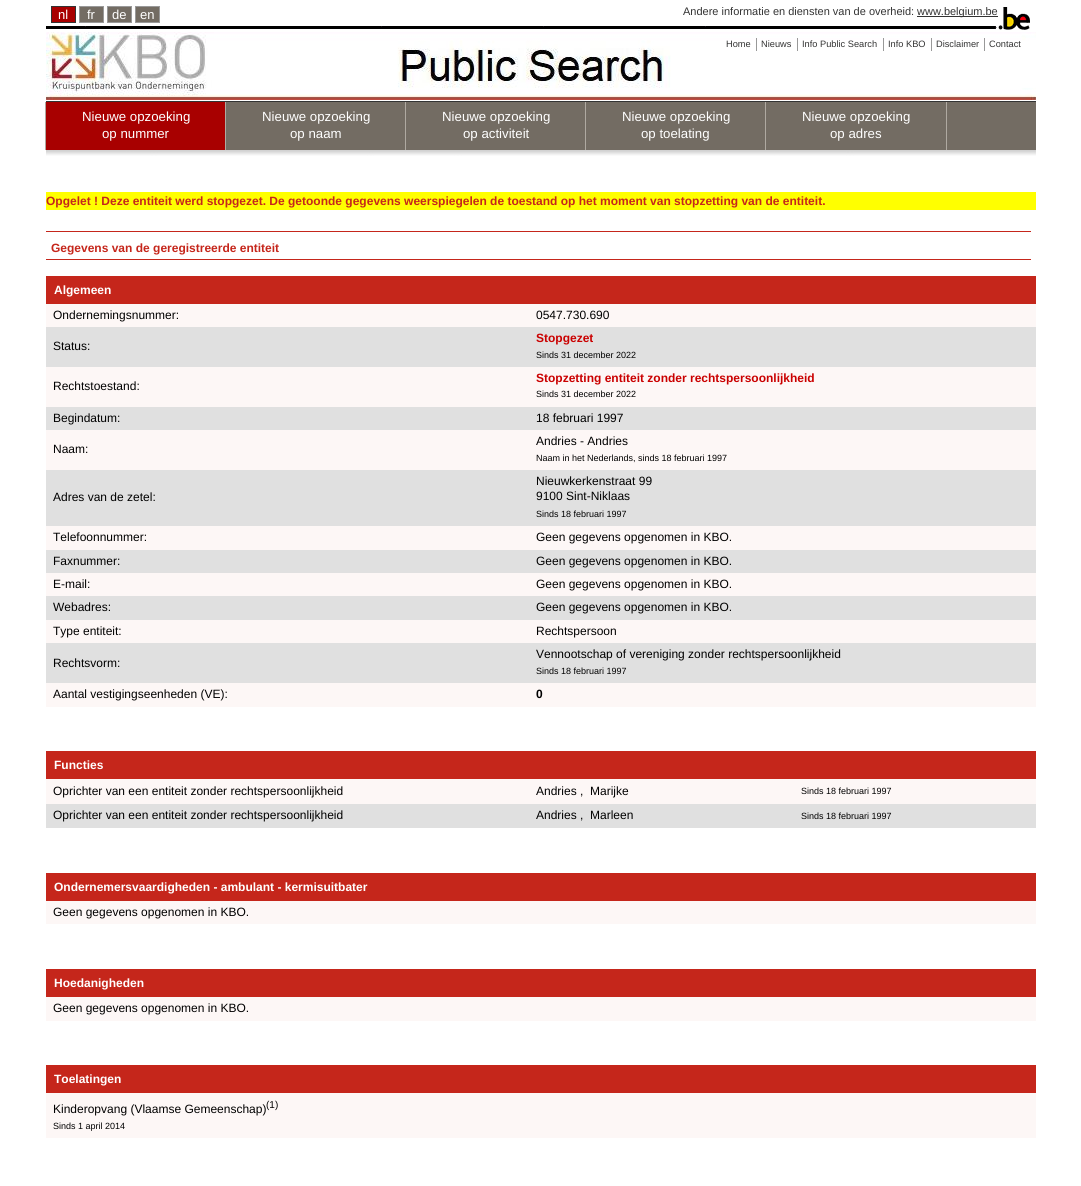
#include <cairo.h>
#include <math.h>
#include <stddef.h>


static void set_color(cairo_t *cr, unsigned color) {
    cairo_set_source_rgb(cr, (color >> 16) / 255.0, (color >> 8 & 255) / 255.0, (color & 255) / 255.0);
}

static void draw_text(cairo_t *cr, double x, double y, const char *s, const char *family, double size, int italic, int bold, unsigned color) {
    cairo_select_font_face(cr, family, italic ? CAIRO_FONT_SLANT_ITALIC : CAIRO_FONT_SLANT_NORMAL,
        bold ? CAIRO_FONT_WEIGHT_BOLD : CAIRO_FONT_WEIGHT_NORMAL);
    cairo_set_font_size(cr, size);
    set_color(cr, color);
    cairo_move_to(cr, x, y);
    cairo_show_text(cr, s);
}

static void fill_rect(cairo_t *cr, double x, double y, double w, double h, unsigned color) {
    set_color(cr, color);
    cairo_rectangle(cr, x, y, w, h);
    cairo_fill(cr);
}

static void draw_image(cairo_t *cr, const char *path, double x, double y, double w, double h) {
    cairo_surface_t *image = cairo_image_surface_create_from_png(path);
    cairo_save(cr);
    cairo_set_source_surface(cr, image, x, y);
    cairo_rectangle(cr, x, y, w, h);
    cairo_fill(cr);
    cairo_restore(cr);
    cairo_surface_destroy(image);
}

int main(void) {
    cairo_surface_t *surface = cairo_image_surface_create(CAIRO_FORMAT_RGB24, 1081, 1186);
    cairo_t *cr = cairo_create(surface);
    cairo_font_options_t *options = cairo_font_options_create();
    cairo_font_options_set_hint_metrics(options, CAIRO_HINT_METRICS_OFF);
    cairo_font_options_set_hint_style(options, CAIRO_HINT_STYLE_NONE);
    cairo_set_font_options(cr, options);
    cairo_set_miter_limit(cr, 4);
    set_color(cr, 0xFFFFFF);
    cairo_paint(cr);
    draw_image(cr, "assets/img1.png", 46, 32, 990, 68);
    draw_image(cr, "assets/img2.png", 46, 26, 951, 3);
    set_color(cr, 0xA80000);
    cairo_rectangle(cr, 51.5, 6.5, 24, 16);
    cairo_fill_preserve(cr);
    set_color(cr, 0x333333);
    cairo_set_line_width(cr, 1);
    cairo_stroke(cr);
    draw_text(cr, 58, 19, "nl", "Liberation Sans", 13, 0, 0, 0xFFFFFF);
    set_color(cr, 0x736C63);
    cairo_rectangle(cr, 79.5, 6.5, 24, 16);
    cairo_fill_preserve(cr);
    set_color(cr, 0x999999);
    cairo_stroke(cr);
    draw_text(cr, 87, 19, "fr", "Liberation Sans", 13, 0, 0, 0xFFFFFF);
    set_color(cr, 0x736C63);
    cairo_rectangle(cr, 107.5, 6.5, 24, 16);
    cairo_fill_preserve(cr);
    set_color(cr, 0x999999);
    cairo_stroke(cr);
    draw_text(cr, 112, 19, "de", "Liberation Sans", 13, 0, 0, 0xFFFFFF);
    set_color(cr, 0x736C63);
    cairo_rectangle(cr, 135.5, 6.5, 24, 16);
    cairo_fill_preserve(cr);
    set_color(cr, 0x999999);
    cairo_stroke(cr);
    draw_text(cr, 140, 19, "en", "Liberation Sans", 13, 0, 0, 0xFFFFFF);
    draw_text(cr, 683, 15, "Andere informatie en diensten van de overheid:", "Liberation Sans", 11, 0, 0, 0x333333);
    fill_rect(cr, 917, 16, 81, 1, 0x333333);
    draw_text(cr, 917, 15, "www.belgium.be", "Liberation Sans", 11, 0, 0, 0x333333);
    draw_image(cr, "assets/img3.png", 998, 7, 32, 23);
    draw_text(cr, 726, 47, "Home", "Liberation Sans", 9.25, 0, 0, 0x333333);
    fill_rect(cr, 756, 38, 1, 13, 0x999999);
    draw_text(cr, 761, 47, "Nieuws", "Liberation Sans", 9.25, 0, 0, 0x333333);
    fill_rect(cr, 797, 38, 1, 13, 0x999999);
    draw_text(cr, 802, 47, "Info Public Search", "Liberation Sans", 9.25, 0, 0, 0x333333);
    fill_rect(cr, 883, 38, 1, 13, 0x999999);
    draw_text(cr, 888, 47, "Info KBO", "Liberation Sans", 9.25, 0, 0, 0x333333);
    fill_rect(cr, 931, 38, 1, 13, 0x999999);
    draw_text(cr, 936, 47, "Disclaimer", "Liberation Sans", 9.25, 0, 0, 0x333333);
    fill_rect(cr, 984, 38, 1, 13, 0x999999);
    draw_text(cr, 989, 47, "Contact", "Liberation Sans", 9.25, 0, 0, 0x333333);
    fill_rect(cr, 947, 102, 89, 48, 0x736C63);
    fill_rect(cr, 46, 101, 990, 1, 0x333333);
    fill_rect(cr, 46, 102, 179, 48, 0xA80000);
    fill_rect(cr, 45, 102, 1, 48, 0xAFA9A1);
    draw_text(cr, 82, 121, "Nieuwe opzoeking", "Liberation Sans", 13.25, 0, 0, 0xFFFFFF);
    draw_text(cr, 102, 138, "op nummer", "Liberation Sans", 13.25, 0, 0, 0xFFFFFF);
    fill_rect(cr, 226, 102, 179, 48, 0x736C63);
    fill_rect(cr, 225, 102, 1, 48, 0xAFA9A1);
    draw_text(cr, 262, 121, "Nieuwe opzoeking", "Liberation Sans", 13.25, 0, 0, 0xFFFFFF);
    draw_text(cr, 290, 138, "op naam", "Liberation Sans", 13.25, 0, 0, 0xFFFFFF);
    fill_rect(cr, 406, 102, 179, 48, 0x736C63);
    fill_rect(cr, 405, 102, 1, 48, 0xAFA9A1);
    draw_text(cr, 442, 121, "Nieuwe opzoeking", "Liberation Sans", 13.25, 0, 0, 0xFFFFFF);
    draw_text(cr, 463, 138, "op activiteit", "Liberation Sans", 13.25, 0, 0, 0xFFFFFF);
    fill_rect(cr, 586, 102, 179, 48, 0x736C63);
    fill_rect(cr, 585, 102, 1, 48, 0xAFA9A1);
    draw_text(cr, 622, 121, "Nieuwe opzoeking", "Liberation Sans", 13.25, 0, 0, 0xFFFFFF);
    draw_text(cr, 641, 138, "op toelating", "Liberation Sans", 13.25, 0, 0, 0xFFFFFF);
    fill_rect(cr, 766, 102, 180, 48, 0x736C63);
    fill_rect(cr, 946, 102, 1, 48, 0xAFA9A1);
    fill_rect(cr, 765, 102, 1, 48, 0xAFA9A1);
    draw_text(cr, 802, 121, "Nieuwe opzoeking", "Liberation Sans", 13.25, 0, 0, 0xFFFFFF);
    draw_text(cr, 830, 138, "op adres", "Liberation Sans", 13.25, 0, 0, 0xFFFFFF);
    draw_image(cr, "assets/img4.png", 46, 150, 990, 6);
    fill_rect(cr, 46, 192, 990, 18, 0xFFFF00);
    draw_text(cr, 46, 205, "Opgelet ! Deze entiteit werd stopgezet. De getoonde gegevens weerspiegelen de toestand op het moment van stopzetting van de entiteit.", "Liberation Sans", 12, 0, 1, 0xC5261B);
    fill_rect(cr, 46, 231, 985, 1, 0xC5261B);
    fill_rect(cr, 46, 259, 985, 1, 0xC5261B);
    draw_text(cr, 51, 252, "Gegevens van de geregistreerde entiteit", "Liberation Sans", 12, 0, 1, 0xC5261B);
    fill_rect(cr, 46, 276, 990, 28, 0xC5261B);
    draw_text(cr, 54, 294, "Algemeen", "Liberation Sans", 12, 0, 1, 0xFFFFFF);
    fill_rect(cr, 46, 304, 990, 23, 0xFDF7F6);
    draw_text(cr, 53, 319, "Ondernemingsnummer:", "Liberation Sans", 12, 0, 0, 0x000000);
    draw_text(cr, 536, 319, "0547.730.690", "Liberation Sans", 12, 0, 0, 0x000000);
    fill_rect(cr, 46, 327, 990, 40, 0xE0E0E0);
    draw_text(cr, 53, 350, "Status:", "Liberation Sans", 12, 0, 0, 0x000000);
    draw_text(cr, 536, 342, "Stopgezet", "Liberation Sans", 12, 0, 1, 0xCA0000);
    draw_text(cr, 536, 358, "Sinds 31 december 2022", "Liberation Sans", 9, 0, 0, 0x000000);
    fill_rect(cr, 46, 367, 990, 40, 0xFDF7F6);
    draw_text(cr, 53, 390, "Rechtstoestand:", "Liberation Sans", 12, 0, 0, 0x000000);
    draw_text(cr, 536, 382, "Stopzetting entiteit zonder rechtspersoonlijkheid", "Liberation Sans", 12, 0, 1, 0xCA0000);
    draw_text(cr, 536, 397, "Sinds 31 december 2022", "Liberation Sans", 9, 0, 0, 0x000000);
    fill_rect(cr, 46, 407, 990, 23, 0xE0E0E0);
    draw_text(cr, 53, 422, "Begindatum:", "Liberation Sans", 12, 0, 0, 0x000000);
    draw_text(cr, 536, 422, "18 februari 1997", "Liberation Sans", 12, 0, 0, 0x000000);
    fill_rect(cr, 46, 430, 990, 40, 0xFDF7F6);
    draw_text(cr, 53, 453, "Naam:", "Liberation Sans", 12, 0, 0, 0x000000);
    draw_text(cr, 536, 445, "Andries - Andries", "Liberation Sans", 12, 0, 0, 0x000000);
    draw_text(cr, 536, 461, "Naam in het Nederlands, sinds 18 februari 1997", "Liberation Sans", 9, 0, 0, 0x000000);
    fill_rect(cr, 46, 470, 990, 56, 0xE0E0E0);
    draw_text(cr, 53, 501, "Adres van de zetel:", "Liberation Sans", 12, 0, 0, 0x000000);
    draw_text(cr, 536, 485, "Nieuwkerkenstraat 99", "Liberation Sans", 12, 0, 0, 0x000000);
    draw_text(cr, 536, 500, "9100 Sint-Niklaas", "Liberation Sans", 12, 0, 0, 0x000000);
    draw_text(cr, 536, 517, "Sinds 18 februari 1997", "Liberation Sans", 9, 0, 0, 0x000000);
    fill_rect(cr, 46, 526, 990, 24, 0xFDF7F6);
    draw_text(cr, 53, 541, "Telefoonnummer:", "Liberation Sans", 12, 0, 0, 0x000000);
    draw_text(cr, 536, 541, "Geen gegevens opgenomen in KBO.", "Liberation Sans", 12, 0, 0, 0x000000);
    fill_rect(cr, 46, 550, 990, 23, 0xE0E0E0);
    draw_text(cr, 53, 565, "Faxnummer:", "Liberation Sans", 12, 0, 0, 0x000000);
    draw_text(cr, 536, 565, "Geen gegevens opgenomen in KBO.", "Liberation Sans", 12, 0, 0, 0x000000);
    fill_rect(cr, 46, 573, 990, 23, 0xFDF7F6);
    draw_text(cr, 53, 588, "E-mail:", "Liberation Sans", 12, 0, 0, 0x000000);
    draw_text(cr, 536, 588, "Geen gegevens opgenomen in KBO.", "Liberation Sans", 12, 0, 0, 0x000000);
    fill_rect(cr, 46, 596, 990, 24, 0xE0E0E0);
    draw_text(cr, 53, 611, "Webadres:", "Liberation Sans", 12, 0, 0, 0x000000);
    draw_text(cr, 536, 611, "Geen gegevens opgenomen in KBO.", "Liberation Sans", 12, 0, 0, 0x000000);
    fill_rect(cr, 46, 620, 990, 23, 0xFDF7F6);
    draw_text(cr, 53, 635, "Type entiteit:", "Liberation Sans", 12, 0, 0, 0x000000);
    draw_text(cr, 536, 635, "Rechtspersoon", "Liberation Sans", 12, 0, 0, 0x000000);
    fill_rect(cr, 46, 643, 990, 40, 0xE0E0E0);
    draw_text(cr, 53, 667, "Rechtsvorm:", "Liberation Sans", 12, 0, 0, 0x000000);
    draw_text(cr, 536, 658, "Vennootschap of vereniging zonder rechtspersoonlijkheid", "Liberation Sans", 12, 0, 0, 0x000000);
    draw_text(cr, 536, 674, "Sinds 18 februari 1997", "Liberation Sans", 9, 0, 0, 0x000000);
    fill_rect(cr, 46, 683, 990, 24, 0xFDF7F6);
    draw_text(cr, 53, 698, "Aantal vestigingseenheden (VE):", "Liberation Sans", 12, 0, 0, 0x000000);
    draw_text(cr, 536, 698, "0", "Liberation Sans", 12, 0, 1, 0x000000);
    fill_rect(cr, 46, 751, 990, 28, 0xC5261B);
    draw_text(cr, 54, 769, "Functies", "Liberation Sans", 12, 0, 1, 0xFFFFFF);
    fill_rect(cr, 46, 779, 990, 25, 0xFDF7F6);
    draw_text(cr, 53, 795, "Oprichter van een entiteit zonder rechtspersoonlijkheid", "Liberation Sans", 12, 0, 0, 0x000000);
    draw_text(cr, 536, 795, "Andries ,", "Liberation Sans", 12, 0, 0, 0x000000);
    draw_text(cr, 590, 795, "Marijke", "Liberation Sans", 12, 0, 0, 0x000000);
    draw_text(cr, 801, 794, "Sinds 18 februari 1997", "Liberation Sans", 9, 0, 0, 0x000000);
    fill_rect(cr, 46, 804, 990, 24, 0xE0E0E0);
    draw_text(cr, 53, 819, "Oprichter van een entiteit zonder rechtspersoonlijkheid", "Liberation Sans", 12, 0, 0, 0x000000);
    draw_text(cr, 536, 819, "Andries ,", "Liberation Sans", 12, 0, 0, 0x000000);
    draw_text(cr, 590, 819, "Marleen", "Liberation Sans", 12, 0, 0, 0x000000);
    draw_text(cr, 801, 819, "Sinds 18 februari 1997", "Liberation Sans", 9, 0, 0, 0x000000);
    fill_rect(cr, 46, 873, 990, 28, 0xC5261B);
    draw_text(cr, 54, 891, "Ondernemersvaardigheden - ambulant - kermisuitbater", "Liberation Sans", 12, 0, 1, 0xFFFFFF);
    fill_rect(cr, 46, 901, 990, 23, 0xFDF7F6);
    draw_text(cr, 53, 916, "Geen gegevens opgenomen in KBO.", "Liberation Sans", 12, 0, 0, 0x000000);
    fill_rect(cr, 46, 969, 990, 28, 0xC5261B);
    draw_text(cr, 54, 987, "Hoedanigheden", "Liberation Sans", 12, 0, 1, 0xFFFFFF);
    fill_rect(cr, 46, 997, 990, 24, 0xFDF7F6);
    draw_text(cr, 53, 1012, "Geen gegevens opgenomen in KBO.", "Liberation Sans", 12, 0, 0, 0x000000);
    fill_rect(cr, 46, 1065, 990, 28, 0xC5261B);
    draw_text(cr, 54, 1083, "Toelatingen", "Liberation Sans", 12, 0, 1, 0xFFFFFF);
    fill_rect(cr, 46, 1093, 990, 45, 0xFDF7F6);
    draw_text(cr, 53, 1113, "Kinderopvang (Vlaamse Gemeenschap)", "Liberation Sans", 12, 0, 0, 0x000000);
    draw_text(cr, 266, 1108, "(1)", "Liberation Sans", 10, 0, 0, 0x000000);
    draw_text(cr, 53, 1129, "Sinds 1 april 2014", "Liberation Sans", 9, 0, 0, 0x000000);
    cairo_surface_write_to_png(surface, "output.png");
    cairo_font_options_destroy(options);
    cairo_destroy(cr);
    cairo_surface_destroy(surface);
    return 0;
}
